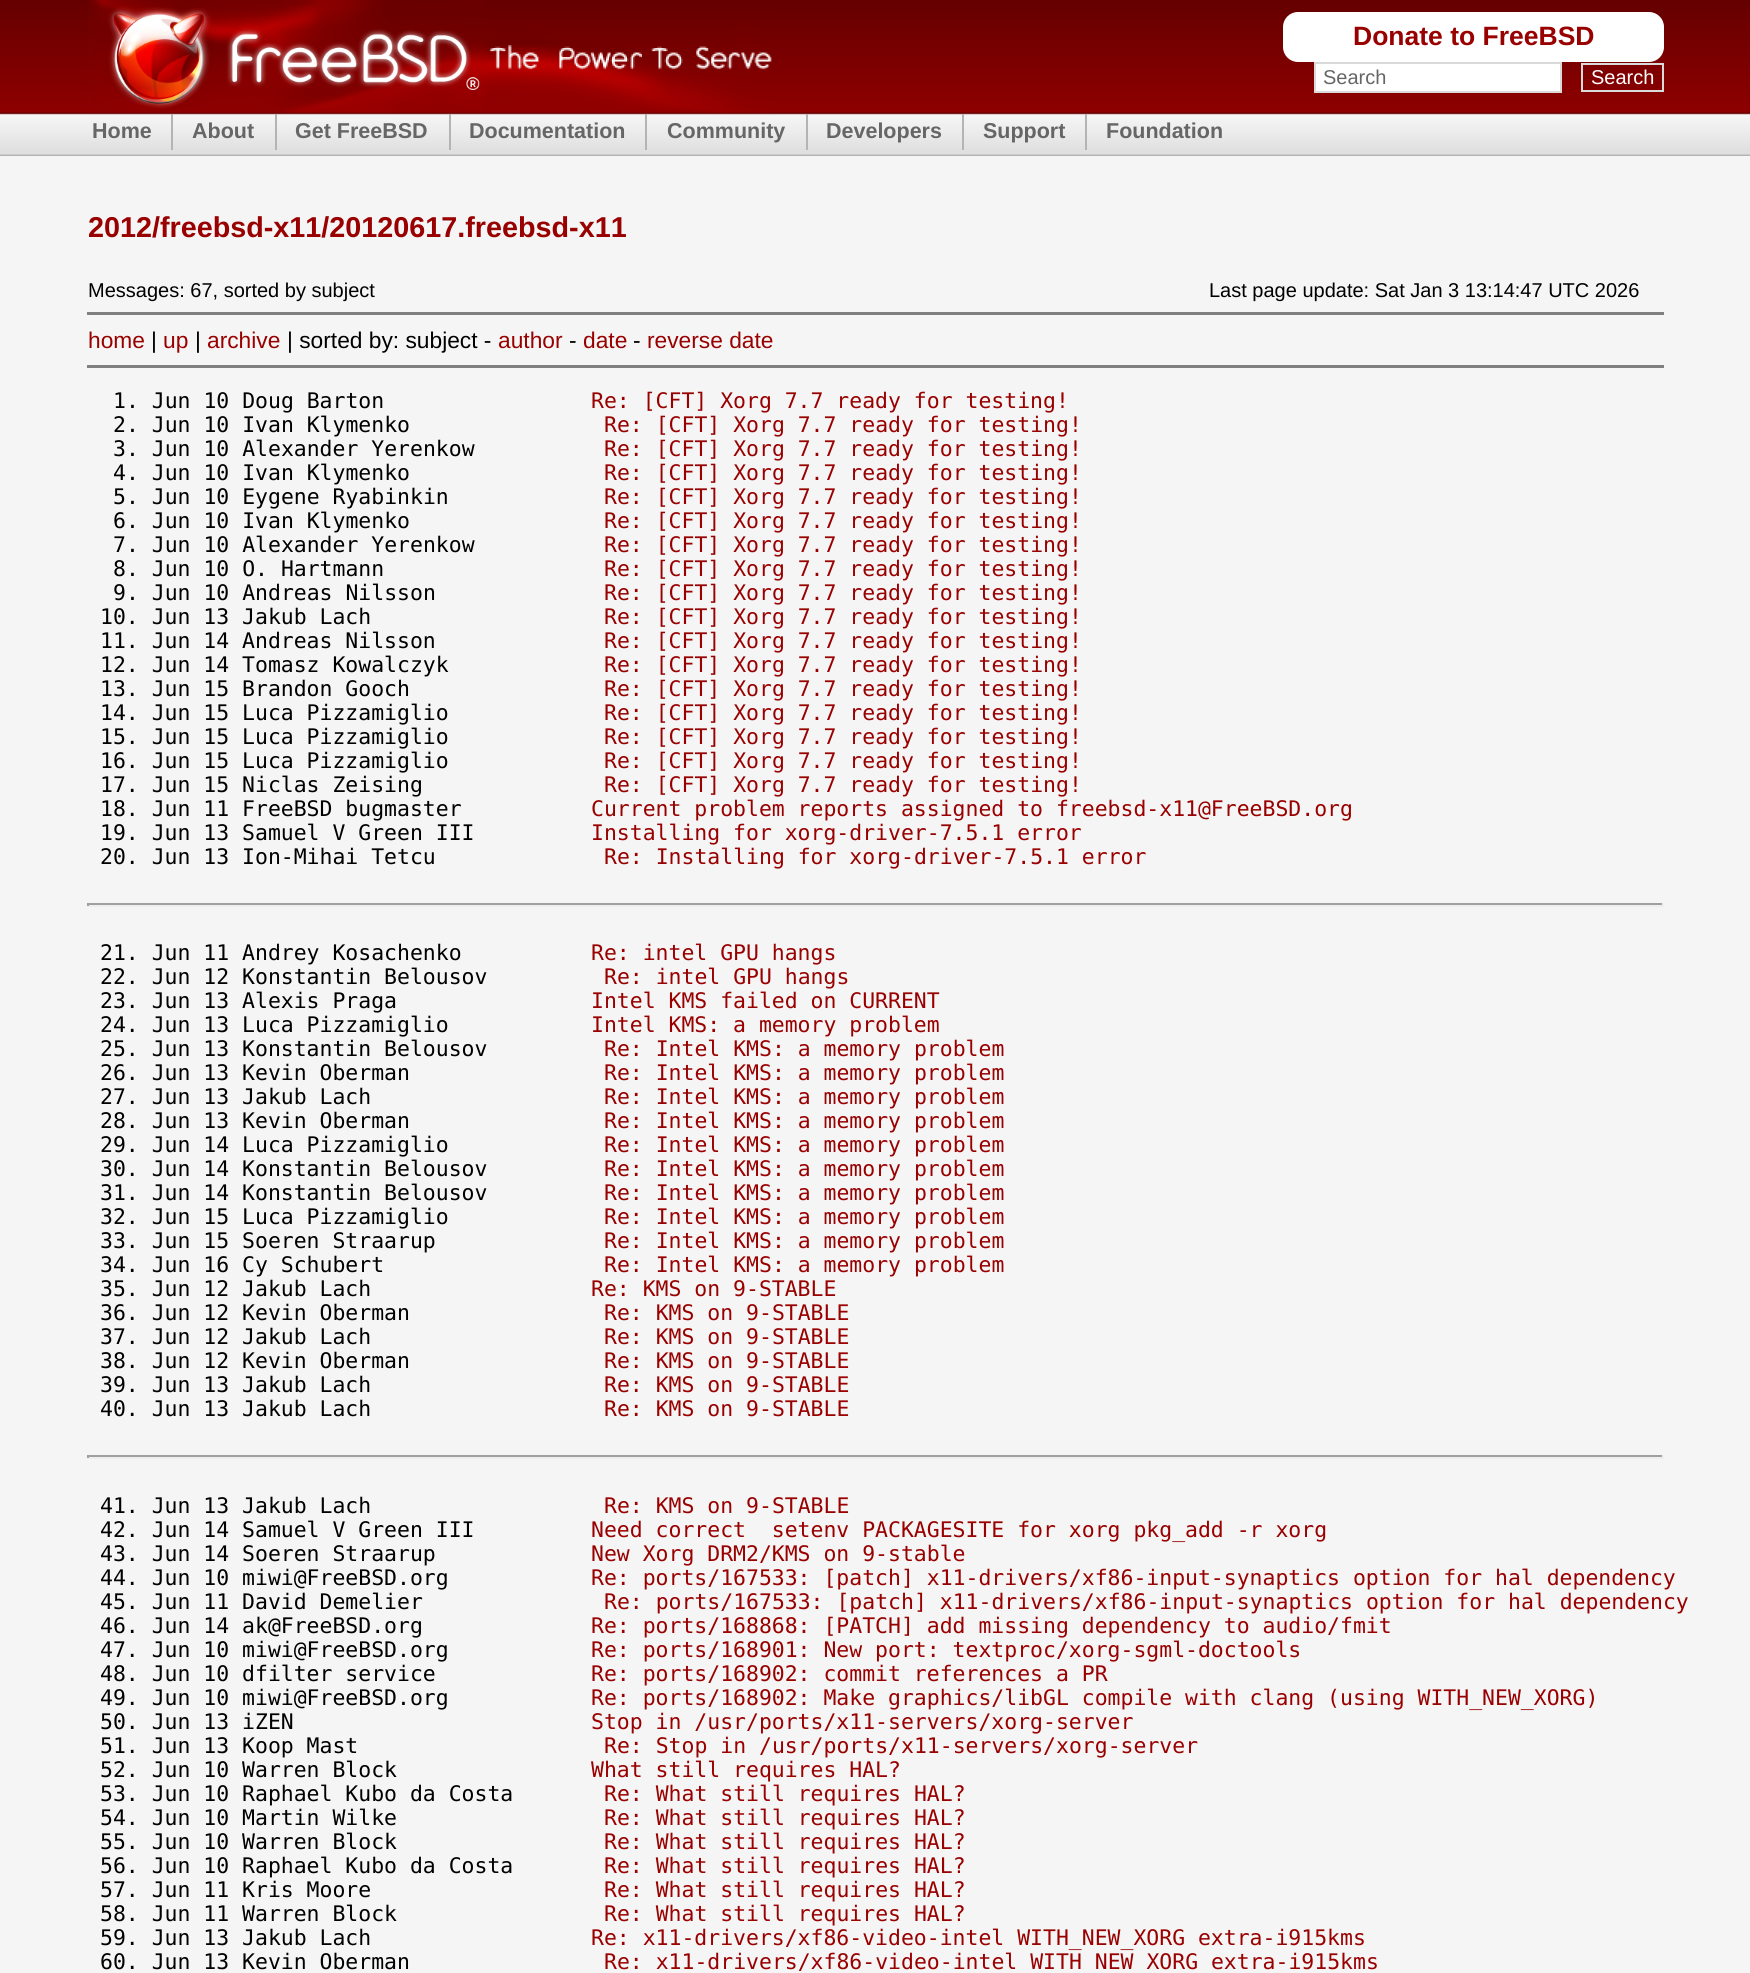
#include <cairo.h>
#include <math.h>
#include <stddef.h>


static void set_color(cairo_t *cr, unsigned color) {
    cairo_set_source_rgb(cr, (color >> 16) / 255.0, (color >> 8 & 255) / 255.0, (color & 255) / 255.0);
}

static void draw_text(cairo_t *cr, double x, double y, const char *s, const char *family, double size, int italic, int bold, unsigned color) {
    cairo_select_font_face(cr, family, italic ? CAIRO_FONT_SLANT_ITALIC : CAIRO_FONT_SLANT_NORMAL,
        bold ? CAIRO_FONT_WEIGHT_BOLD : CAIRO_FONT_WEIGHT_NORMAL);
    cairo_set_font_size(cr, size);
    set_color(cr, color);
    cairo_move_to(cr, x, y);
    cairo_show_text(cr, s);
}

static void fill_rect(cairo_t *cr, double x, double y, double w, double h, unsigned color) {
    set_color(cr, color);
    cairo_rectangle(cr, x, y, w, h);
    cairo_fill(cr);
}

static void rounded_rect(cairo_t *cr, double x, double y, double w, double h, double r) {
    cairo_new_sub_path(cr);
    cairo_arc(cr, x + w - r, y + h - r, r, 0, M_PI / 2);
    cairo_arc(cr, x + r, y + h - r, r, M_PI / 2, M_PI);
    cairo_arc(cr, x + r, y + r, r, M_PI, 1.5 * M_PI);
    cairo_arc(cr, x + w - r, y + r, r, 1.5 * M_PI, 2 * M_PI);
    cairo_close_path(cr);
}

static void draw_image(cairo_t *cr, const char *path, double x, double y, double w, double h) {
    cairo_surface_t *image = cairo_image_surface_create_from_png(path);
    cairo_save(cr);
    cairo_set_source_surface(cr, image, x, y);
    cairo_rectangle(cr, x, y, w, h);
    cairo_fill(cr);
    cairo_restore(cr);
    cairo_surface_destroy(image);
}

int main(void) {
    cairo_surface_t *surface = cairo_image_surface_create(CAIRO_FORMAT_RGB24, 1750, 1973);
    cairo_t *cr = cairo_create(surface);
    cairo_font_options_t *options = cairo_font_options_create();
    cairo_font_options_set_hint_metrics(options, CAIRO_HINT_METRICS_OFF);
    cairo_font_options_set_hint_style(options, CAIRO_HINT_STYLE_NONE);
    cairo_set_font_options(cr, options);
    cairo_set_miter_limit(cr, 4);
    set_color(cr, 0xF5F5F5);
    cairo_paint(cr);
    draw_image(cr, "assets/img1.png", 0, 0, 1750, 156);
    draw_image(cr, "assets/img2.png", 87, 0, 686, 113);
    set_color(cr, 0xFFFFFF);
    rounded_rect(cr, 1283, 12, 381, 50, 15);
    cairo_fill(cr);
    draw_text(cr, 1353, 45, "Donate to FreeBSD", "Liberation Sans", 26.5, 0, 1, 0x990000);
    set_color(cr, 0xFFFFFF);
    cairo_rectangle(cr, 1315, 63, 246, 29);
    cairo_fill_preserve(cr);
    set_color(cr, 0xDADADA);
    cairo_stroke(cr);
    draw_text(cr, 1323, 84, "Search", "Liberation Sans", 20, 0, 0, 0x666666);
    cairo_rectangle(cr, 1582, 64, 81, 27);
    set_color(cr, 0xDADADA);
    cairo_stroke(cr);
    draw_text(cr, 1591, 84, "Search", "Liberation Sans", 20, 0, 0, 0xFFFFFF);
    draw_text(cr, 92, 138, "Home", "Liberation Sans", 21.5, 0, 1, 0x666666);
    fill_rect(cr, 171, 114, 2, 36, 0xB4B4B4);
    draw_text(cr, 192, 138, "About", "Liberation Sans", 21.5, 0, 1, 0x666666);
    fill_rect(cr, 275, 114, 2, 36, 0xB4B4B4);
    draw_text(cr, 295, 138, "Get FreeBSD", "Liberation Sans", 21.5, 0, 1, 0x666666);
    fill_rect(cr, 449, 114, 2, 36, 0xB4B4B4);
    draw_text(cr, 469, 138, "Documentation", "Liberation Sans", 21.5, 0, 1, 0x666666);
    fill_rect(cr, 645, 114, 2, 36, 0xB4B4B4);
    draw_text(cr, 667, 138, "Community", "Liberation Sans", 21.5, 0, 1, 0x666666);
    fill_rect(cr, 806, 114, 2, 36, 0xB4B4B4);
    draw_text(cr, 826, 138, "Developers", "Liberation Sans", 21.5, 0, 1, 0x666666);
    fill_rect(cr, 962, 114, 2, 36, 0xB4B4B4);
    draw_text(cr, 983, 138, "Support", "Liberation Sans", 21.5, 0, 1, 0x666666);
    fill_rect(cr, 1085, 114, 2, 36, 0xB4B4B4);
    draw_text(cr, 1106, 138, "Foundation", "Liberation Sans", 21.5, 0, 1, 0x666666);
    draw_text(cr, 88, 237, "2012/freebsd-x11/20120617.freebsd-x11", "Liberation Sans", 28.75, 0, 1, 0x990000);
    draw_text(cr, 88, 297, "Messages: 67, sorted by subject", "Liberation Sans", 20, 0, 0, 0x000000);
    draw_text(cr, 1209, 297, "Last page update: Sat Jan 3 13:14:47 UTC 2026", "Liberation Sans", 20, 0, 0, 0x000000);
    fill_rect(cr, 87, 312, 1577, 3, 0x808080);
    draw_text(cr, 88, 348, "home", "Liberation Sans", 22.75, 0, 0, 0x990000);
    draw_text(cr, 151, 348, "|", "Liberation Sans", 22.75, 0, 0, 0x000000);
    draw_text(cr, 163, 348, "up", "Liberation Sans", 22.75, 0, 0, 0x990000);
    draw_text(cr, 195, 348, "|", "Liberation Sans", 22.75, 0, 0, 0x000000);
    draw_text(cr, 207, 348, "archive", "Liberation Sans", 22.75, 0, 0, 0x990000);
    draw_text(cr, 287, 348, "| sorted by: subject -", "Liberation Sans", 22.75, 0, 0, 0x000000);
    draw_text(cr, 498, 348, "author", "Liberation Sans", 22.75, 0, 0, 0x990000);
    draw_text(cr, 569, 348, "-", "Liberation Sans", 22.75, 0, 0, 0x000000);
    draw_text(cr, 583, 348, "date", "Liberation Sans", 22.75, 0, 0, 0x990000);
    draw_text(cr, 633, 348, "-", "Liberation Sans", 22.75, 0, 0, 0x000000);
    draw_text(cr, 647, 348, "reverse date", "Liberation Sans", 22.75, 0, 0, 0x990000);
    fill_rect(cr, 87, 365, 1577, 3, 0x808080);
    draw_text(cr, 113, 408, "1. Jun 10 Doug Barton", "DejaVu Sans Mono", 21.45, 0, 0, 0x000000);
    draw_text(cr, 591, 408, "Re: [CFT] Xorg 7.7 ready for testing!", "DejaVu Sans Mono", 21.45, 0, 0, 0x990000);
    draw_text(cr, 113, 432, "2. Jun 10 Ivan Klymenko", "DejaVu Sans Mono", 21.45, 0, 0, 0x000000);
    draw_text(cr, 604, 432, "Re: [CFT] Xorg 7.7 ready for testing!", "DejaVu Sans Mono", 21.45, 0, 0, 0x990000);
    draw_text(cr, 113, 456, "3. Jun 10 Alexander Yerenkow", "DejaVu Sans Mono", 21.45, 0, 0, 0x000000);
    draw_text(cr, 604, 456, "Re: [CFT] Xorg 7.7 ready for testing!", "DejaVu Sans Mono", 21.45, 0, 0, 0x990000);
    draw_text(cr, 113, 480, "4. Jun 10 Ivan Klymenko", "DejaVu Sans Mono", 21.45, 0, 0, 0x000000);
    draw_text(cr, 604, 480, "Re: [CFT] Xorg 7.7 ready for testing!", "DejaVu Sans Mono", 21.45, 0, 0, 0x990000);
    draw_text(cr, 113, 504, "5. Jun 10 Eygene Ryabinkin", "DejaVu Sans Mono", 21.45, 0, 0, 0x000000);
    draw_text(cr, 604, 504, "Re: [CFT] Xorg 7.7 ready for testing!", "DejaVu Sans Mono", 21.45, 0, 0, 0x990000);
    draw_text(cr, 113, 528, "6. Jun 10 Ivan Klymenko", "DejaVu Sans Mono", 21.45, 0, 0, 0x000000);
    draw_text(cr, 604, 528, "Re: [CFT] Xorg 7.7 ready for testing!", "DejaVu Sans Mono", 21.45, 0, 0, 0x990000);
    draw_text(cr, 113, 552, "7. Jun 10 Alexander Yerenkow", "DejaVu Sans Mono", 21.45, 0, 0, 0x000000);
    draw_text(cr, 604, 552, "Re: [CFT] Xorg 7.7 ready for testing!", "DejaVu Sans Mono", 21.45, 0, 0, 0x990000);
    draw_text(cr, 113, 576, "8. Jun 10 O. Hartmann", "DejaVu Sans Mono", 21.45, 0, 0, 0x000000);
    draw_text(cr, 604, 576, "Re: [CFT] Xorg 7.7 ready for testing!", "DejaVu Sans Mono", 21.45, 0, 0, 0x990000);
    draw_text(cr, 113, 600, "9. Jun 10 Andreas Nilsson", "DejaVu Sans Mono", 21.45, 0, 0, 0x000000);
    draw_text(cr, 604, 600, "Re: [CFT] Xorg 7.7 ready for testing!", "DejaVu Sans Mono", 21.45, 0, 0, 0x990000);
    draw_text(cr, 100, 624, "10. Jun 13 Jakub Lach", "DejaVu Sans Mono", 21.45, 0, 0, 0x000000);
    draw_text(cr, 604, 624, "Re: [CFT] Xorg 7.7 ready for testing!", "DejaVu Sans Mono", 21.45, 0, 0, 0x990000);
    draw_text(cr, 100, 648, "11. Jun 14 Andreas Nilsson", "DejaVu Sans Mono", 21.45, 0, 0, 0x000000);
    draw_text(cr, 604, 648, "Re: [CFT] Xorg 7.7 ready for testing!", "DejaVu Sans Mono", 21.45, 0, 0, 0x990000);
    draw_text(cr, 100, 672, "12. Jun 14 Tomasz Kowalczyk", "DejaVu Sans Mono", 21.45, 0, 0, 0x000000);
    draw_text(cr, 604, 672, "Re: [CFT] Xorg 7.7 ready for testing!", "DejaVu Sans Mono", 21.45, 0, 0, 0x990000);
    draw_text(cr, 100, 696, "13. Jun 15 Brandon Gooch", "DejaVu Sans Mono", 21.45, 0, 0, 0x000000);
    draw_text(cr, 604, 696, "Re: [CFT] Xorg 7.7 ready for testing!", "DejaVu Sans Mono", 21.45, 0, 0, 0x990000);
    draw_text(cr, 100, 720, "14. Jun 15 Luca Pizzamiglio", "DejaVu Sans Mono", 21.45, 0, 0, 0x000000);
    draw_text(cr, 604, 720, "Re: [CFT] Xorg 7.7 ready for testing!", "DejaVu Sans Mono", 21.45, 0, 0, 0x990000);
    draw_text(cr, 100, 744, "15. Jun 15 Luca Pizzamiglio", "DejaVu Sans Mono", 21.45, 0, 0, 0x000000);
    draw_text(cr, 604, 744, "Re: [CFT] Xorg 7.7 ready for testing!", "DejaVu Sans Mono", 21.45, 0, 0, 0x990000);
    draw_text(cr, 100, 768, "16. Jun 15 Luca Pizzamiglio", "DejaVu Sans Mono", 21.45, 0, 0, 0x000000);
    draw_text(cr, 604, 768, "Re: [CFT] Xorg 7.7 ready for testing!", "DejaVu Sans Mono", 21.45, 0, 0, 0x990000);
    draw_text(cr, 100, 792, "17. Jun 15 Niclas Zeising", "DejaVu Sans Mono", 21.45, 0, 0, 0x000000);
    draw_text(cr, 604, 792, "Re: [CFT] Xorg 7.7 ready for testing!", "DejaVu Sans Mono", 21.45, 0, 0, 0x990000);
    draw_text(cr, 100, 816, "18. Jun 11 FreeBSD bugmaster", "DejaVu Sans Mono", 21.45, 0, 0, 0x000000);
    draw_text(cr, 591, 816, "Current problem reports assigned to freebsd-x11@FreeBSD.org", "DejaVu Sans Mono", 21.45, 0, 0, 0x990000);
    draw_text(cr, 100, 840, "19. Jun 13 Samuel V Green III", "DejaVu Sans Mono", 21.45, 0, 0, 0x000000);
    draw_text(cr, 591, 840, "Installing for xorg-driver-7.5.1 error", "DejaVu Sans Mono", 21.45, 0, 0, 0x990000);
    draw_text(cr, 100, 864, "20. Jun 13 Ion-Mihai Tetcu", "DejaVu Sans Mono", 21.45, 0, 0, 0x000000);
    draw_text(cr, 604, 864, "Re: Installing for xorg-driver-7.5.1 error", "DejaVu Sans Mono", 21.45, 0, 0, 0x990000);
    fill_rect(cr, 87, 903, 1577, 2, 0x9F9F9F);
    fill_rect(cr, 1662, 903, 2, 3, 0xEEEEEE);
    fill_rect(cr, 87, 905, 1577, 2, 0xEEEEEE);
    fill_rect(cr, 87, 903, 2, 3, 0x9F9F9F);
    draw_text(cr, 100, 960, "21. Jun 11 Andrey Kosachenko", "DejaVu Sans Mono", 21.45, 0, 0, 0x000000);
    draw_text(cr, 591, 960, "Re: intel GPU hangs", "DejaVu Sans Mono", 21.45, 0, 0, 0x990000);
    draw_text(cr, 100, 984, "22. Jun 12 Konstantin Belousov", "DejaVu Sans Mono", 21.45, 0, 0, 0x000000);
    draw_text(cr, 604, 984, "Re: intel GPU hangs", "DejaVu Sans Mono", 21.45, 0, 0, 0x990000);
    draw_text(cr, 100, 1008, "23. Jun 13 Alexis Praga", "DejaVu Sans Mono", 21.45, 0, 0, 0x000000);
    draw_text(cr, 591, 1008, "Intel KMS failed on CURRENT", "DejaVu Sans Mono", 21.45, 0, 0, 0x990000);
    draw_text(cr, 100, 1032, "24. Jun 13 Luca Pizzamiglio", "DejaVu Sans Mono", 21.45, 0, 0, 0x000000);
    draw_text(cr, 591, 1032, "Intel KMS: a memory problem", "DejaVu Sans Mono", 21.45, 0, 0, 0x990000);
    draw_text(cr, 100, 1056, "25. Jun 13 Konstantin Belousov", "DejaVu Sans Mono", 21.45, 0, 0, 0x000000);
    draw_text(cr, 604, 1056, "Re: Intel KMS: a memory problem", "DejaVu Sans Mono", 21.45, 0, 0, 0x990000);
    draw_text(cr, 100, 1080, "26. Jun 13 Kevin Oberman", "DejaVu Sans Mono", 21.45, 0, 0, 0x000000);
    draw_text(cr, 604, 1080, "Re: Intel KMS: a memory problem", "DejaVu Sans Mono", 21.45, 0, 0, 0x990000);
    draw_text(cr, 100, 1104, "27. Jun 13 Jakub Lach", "DejaVu Sans Mono", 21.45, 0, 0, 0x000000);
    draw_text(cr, 604, 1104, "Re: Intel KMS: a memory problem", "DejaVu Sans Mono", 21.45, 0, 0, 0x990000);
    draw_text(cr, 100, 1128, "28. Jun 13 Kevin Oberman", "DejaVu Sans Mono", 21.45, 0, 0, 0x000000);
    draw_text(cr, 604, 1128, "Re: Intel KMS: a memory problem", "DejaVu Sans Mono", 21.45, 0, 0, 0x990000);
    draw_text(cr, 100, 1152, "29. Jun 14 Luca Pizzamiglio", "DejaVu Sans Mono", 21.45, 0, 0, 0x000000);
    draw_text(cr, 604, 1152, "Re: Intel KMS: a memory problem", "DejaVu Sans Mono", 21.45, 0, 0, 0x990000);
    draw_text(cr, 100, 1176, "30. Jun 14 Konstantin Belousov", "DejaVu Sans Mono", 21.45, 0, 0, 0x000000);
    draw_text(cr, 604, 1176, "Re: Intel KMS: a memory problem", "DejaVu Sans Mono", 21.45, 0, 0, 0x990000);
    draw_text(cr, 100, 1200, "31. Jun 14 Konstantin Belousov", "DejaVu Sans Mono", 21.45, 0, 0, 0x000000);
    draw_text(cr, 604, 1200, "Re: Intel KMS: a memory problem", "DejaVu Sans Mono", 21.45, 0, 0, 0x990000);
    draw_text(cr, 100, 1224, "32. Jun 15 Luca Pizzamiglio", "DejaVu Sans Mono", 21.45, 0, 0, 0x000000);
    draw_text(cr, 604, 1224, "Re: Intel KMS: a memory problem", "DejaVu Sans Mono", 21.45, 0, 0, 0x990000);
    draw_text(cr, 100, 1248, "33. Jun 15 Soeren Straarup", "DejaVu Sans Mono", 21.45, 0, 0, 0x000000);
    draw_text(cr, 604, 1248, "Re: Intel KMS: a memory problem", "DejaVu Sans Mono", 21.45, 0, 0, 0x990000);
    draw_text(cr, 100, 1272, "34. Jun 16 Cy Schubert", "DejaVu Sans Mono", 21.45, 0, 0, 0x000000);
    draw_text(cr, 604, 1272, "Re: Intel KMS: a memory problem", "DejaVu Sans Mono", 21.45, 0, 0, 0x990000);
    draw_text(cr, 100, 1296, "35. Jun 12 Jakub Lach", "DejaVu Sans Mono", 21.45, 0, 0, 0x000000);
    draw_text(cr, 591, 1296, "Re: KMS on 9-STABLE", "DejaVu Sans Mono", 21.45, 0, 0, 0x990000);
    draw_text(cr, 100, 1320, "36. Jun 12 Kevin Oberman", "DejaVu Sans Mono", 21.45, 0, 0, 0x000000);
    draw_text(cr, 604, 1320, "Re: KMS on 9-STABLE", "DejaVu Sans Mono", 21.45, 0, 0, 0x990000);
    draw_text(cr, 100, 1344, "37. Jun 12 Jakub Lach", "DejaVu Sans Mono", 21.45, 0, 0, 0x000000);
    draw_text(cr, 604, 1344, "Re: KMS on 9-STABLE", "DejaVu Sans Mono", 21.45, 0, 0, 0x990000);
    draw_text(cr, 100, 1368, "38. Jun 12 Kevin Oberman", "DejaVu Sans Mono", 21.45, 0, 0, 0x000000);
    draw_text(cr, 604, 1368, "Re: KMS on 9-STABLE", "DejaVu Sans Mono", 21.45, 0, 0, 0x990000);
    draw_text(cr, 100, 1392, "39. Jun 13 Jakub Lach", "DejaVu Sans Mono", 21.45, 0, 0, 0x000000);
    draw_text(cr, 604, 1392, "Re: KMS on 9-STABLE", "DejaVu Sans Mono", 21.45, 0, 0, 0x990000);
    draw_text(cr, 100, 1416, "40. Jun 13 Jakub Lach", "DejaVu Sans Mono", 21.45, 0, 0, 0x000000);
    draw_text(cr, 604, 1416, "Re: KMS on 9-STABLE", "DejaVu Sans Mono", 21.45, 0, 0, 0x990000);
    fill_rect(cr, 87, 1455, 1577, 2, 0x9F9F9F);
    fill_rect(cr, 1662, 1455, 2, 3, 0xEEEEEE);
    fill_rect(cr, 87, 1457, 1577, 2, 0xEEEEEE);
    fill_rect(cr, 87, 1455, 2, 3, 0x9F9F9F);
    draw_text(cr, 100, 1513, "41. Jun 13 Jakub Lach", "DejaVu Sans Mono", 21.45, 0, 0, 0x000000);
    draw_text(cr, 604, 1513, "Re: KMS on 9-STABLE", "DejaVu Sans Mono", 21.45, 0, 0, 0x990000);
    draw_text(cr, 100, 1537, "42. Jun 14 Samuel V Green III", "DejaVu Sans Mono", 21.45, 0, 0, 0x000000);
    draw_text(cr, 591, 1537, "Need correct  setenv PACKAGESITE for xorg pkg_add -r xorg", "DejaVu Sans Mono", 21.45, 0, 0, 0x990000);
    draw_text(cr, 100, 1561, "43. Jun 14 Soeren Straarup", "DejaVu Sans Mono", 21.45, 0, 0, 0x000000);
    draw_text(cr, 591, 1561, "New Xorg DRM2/KMS on 9-stable", "DejaVu Sans Mono", 21.45, 0, 0, 0x990000);
    draw_text(cr, 100, 1585, "44. Jun 10 miwi@FreeBSD.org", "DejaVu Sans Mono", 21.45, 0, 0, 0x000000);
    draw_text(cr, 591, 1585, "Re: ports/167533: [patch] x11-drivers/xf86-input-synaptics option for hal dependency", "DejaVu Sans Mono", 21.45, 0, 0, 0x990000);
    draw_text(cr, 100, 1609, "45. Jun 11 David Demelier", "DejaVu Sans Mono", 21.45, 0, 0, 0x000000);
    draw_text(cr, 604, 1609, "Re: ports/167533: [patch] x11-drivers/xf86-input-synaptics option for hal dependency", "DejaVu Sans Mono", 21.45, 0, 0, 0x990000);
    draw_text(cr, 100, 1633, "46. Jun 14 ak@FreeBSD.org", "DejaVu Sans Mono", 21.45, 0, 0, 0x000000);
    draw_text(cr, 591, 1633, "Re: ports/168868: [PATCH] add missing dependency to audio/fmit", "DejaVu Sans Mono", 21.45, 0, 0, 0x990000);
    draw_text(cr, 100, 1657, "47. Jun 10 miwi@FreeBSD.org", "DejaVu Sans Mono", 21.45, 0, 0, 0x000000);
    draw_text(cr, 591, 1657, "Re: ports/168901: New port: textproc/xorg-sgml-doctools", "DejaVu Sans Mono", 21.45, 0, 0, 0x990000);
    draw_text(cr, 100, 1681, "48. Jun 10 dfilter service", "DejaVu Sans Mono", 21.45, 0, 0, 0x000000);
    draw_text(cr, 591, 1681, "Re: ports/168902: commit references a PR", "DejaVu Sans Mono", 21.45, 0, 0, 0x990000);
    draw_text(cr, 100, 1705, "49. Jun 10 miwi@FreeBSD.org", "DejaVu Sans Mono", 21.45, 0, 0, 0x000000);
    draw_text(cr, 591, 1705, "Re: ports/168902: Make graphics/libGL compile with clang (using WITH_NEW_XORG)", "DejaVu Sans Mono", 21.45, 0, 0, 0x990000);
    draw_text(cr, 100, 1729, "50. Jun 13 iZEN", "DejaVu Sans Mono", 21.45, 0, 0, 0x000000);
    draw_text(cr, 591, 1729, "Stop in /usr/ports/x11-servers/xorg-server", "DejaVu Sans Mono", 21.45, 0, 0, 0x990000);
    draw_text(cr, 100, 1753, "51. Jun 13 Koop Mast", "DejaVu Sans Mono", 21.45, 0, 0, 0x000000);
    draw_text(cr, 604, 1753, "Re: Stop in /usr/ports/x11-servers/xorg-server", "DejaVu Sans Mono", 21.45, 0, 0, 0x990000);
    draw_text(cr, 100, 1777, "52. Jun 10 Warren Block", "DejaVu Sans Mono", 21.45, 0, 0, 0x000000);
    draw_text(cr, 591, 1777, "What still requires HAL?", "DejaVu Sans Mono", 21.45, 0, 0, 0x990000);
    draw_text(cr, 100, 1801, "53. Jun 10 Raphael Kubo da Costa", "DejaVu Sans Mono", 21.45, 0, 0, 0x000000);
    draw_text(cr, 604, 1801, "Re: What still requires HAL?", "DejaVu Sans Mono", 21.45, 0, 0, 0x990000);
    draw_text(cr, 100, 1825, "54. Jun 10 Martin Wilke", "DejaVu Sans Mono", 21.45, 0, 0, 0x000000);
    draw_text(cr, 604, 1825, "Re: What still requires HAL?", "DejaVu Sans Mono", 21.45, 0, 0, 0x990000);
    draw_text(cr, 100, 1849, "55. Jun 10 Warren Block", "DejaVu Sans Mono", 21.45, 0, 0, 0x000000);
    draw_text(cr, 604, 1849, "Re: What still requires HAL?", "DejaVu Sans Mono", 21.45, 0, 0, 0x990000);
    draw_text(cr, 100, 1873, "56. Jun 10 Raphael Kubo da Costa", "DejaVu Sans Mono", 21.45, 0, 0, 0x000000);
    draw_text(cr, 604, 1873, "Re: What still requires HAL?", "DejaVu Sans Mono", 21.45, 0, 0, 0x990000);
    draw_text(cr, 100, 1897, "57. Jun 11 Kris Moore", "DejaVu Sans Mono", 21.45, 0, 0, 0x000000);
    draw_text(cr, 604, 1897, "Re: What still requires HAL?", "DejaVu Sans Mono", 21.45, 0, 0, 0x990000);
    draw_text(cr, 100, 1921, "58. Jun 11 Warren Block", "DejaVu Sans Mono", 21.45, 0, 0, 0x000000);
    draw_text(cr, 604, 1921, "Re: What still requires HAL?", "DejaVu Sans Mono", 21.45, 0, 0, 0x990000);
    draw_text(cr, 100, 1945, "59. Jun 13 Jakub Lach", "DejaVu Sans Mono", 21.45, 0, 0, 0x000000);
    draw_text(cr, 591, 1945, "Re: x11-drivers/xf86-video-intel WITH_NEW_XORG extra-i915kms", "DejaVu Sans Mono", 21.45, 0, 0, 0x990000);
    draw_text(cr, 100, 1969, "60. Jun 13 Kevin Oberman", "DejaVu Sans Mono", 21.45, 0, 0, 0x000000);
    draw_text(cr, 604, 1969, "Re: x11-drivers/xf86-video-intel WITH_NEW_XORG extra-i915kms", "DejaVu Sans Mono", 21.45, 0, 0, 0x990000);
    cairo_surface_write_to_png(surface, "output.png");
    cairo_font_options_destroy(options);
    cairo_destroy(cr);
    cairo_surface_destroy(surface);
    return 0;
}
